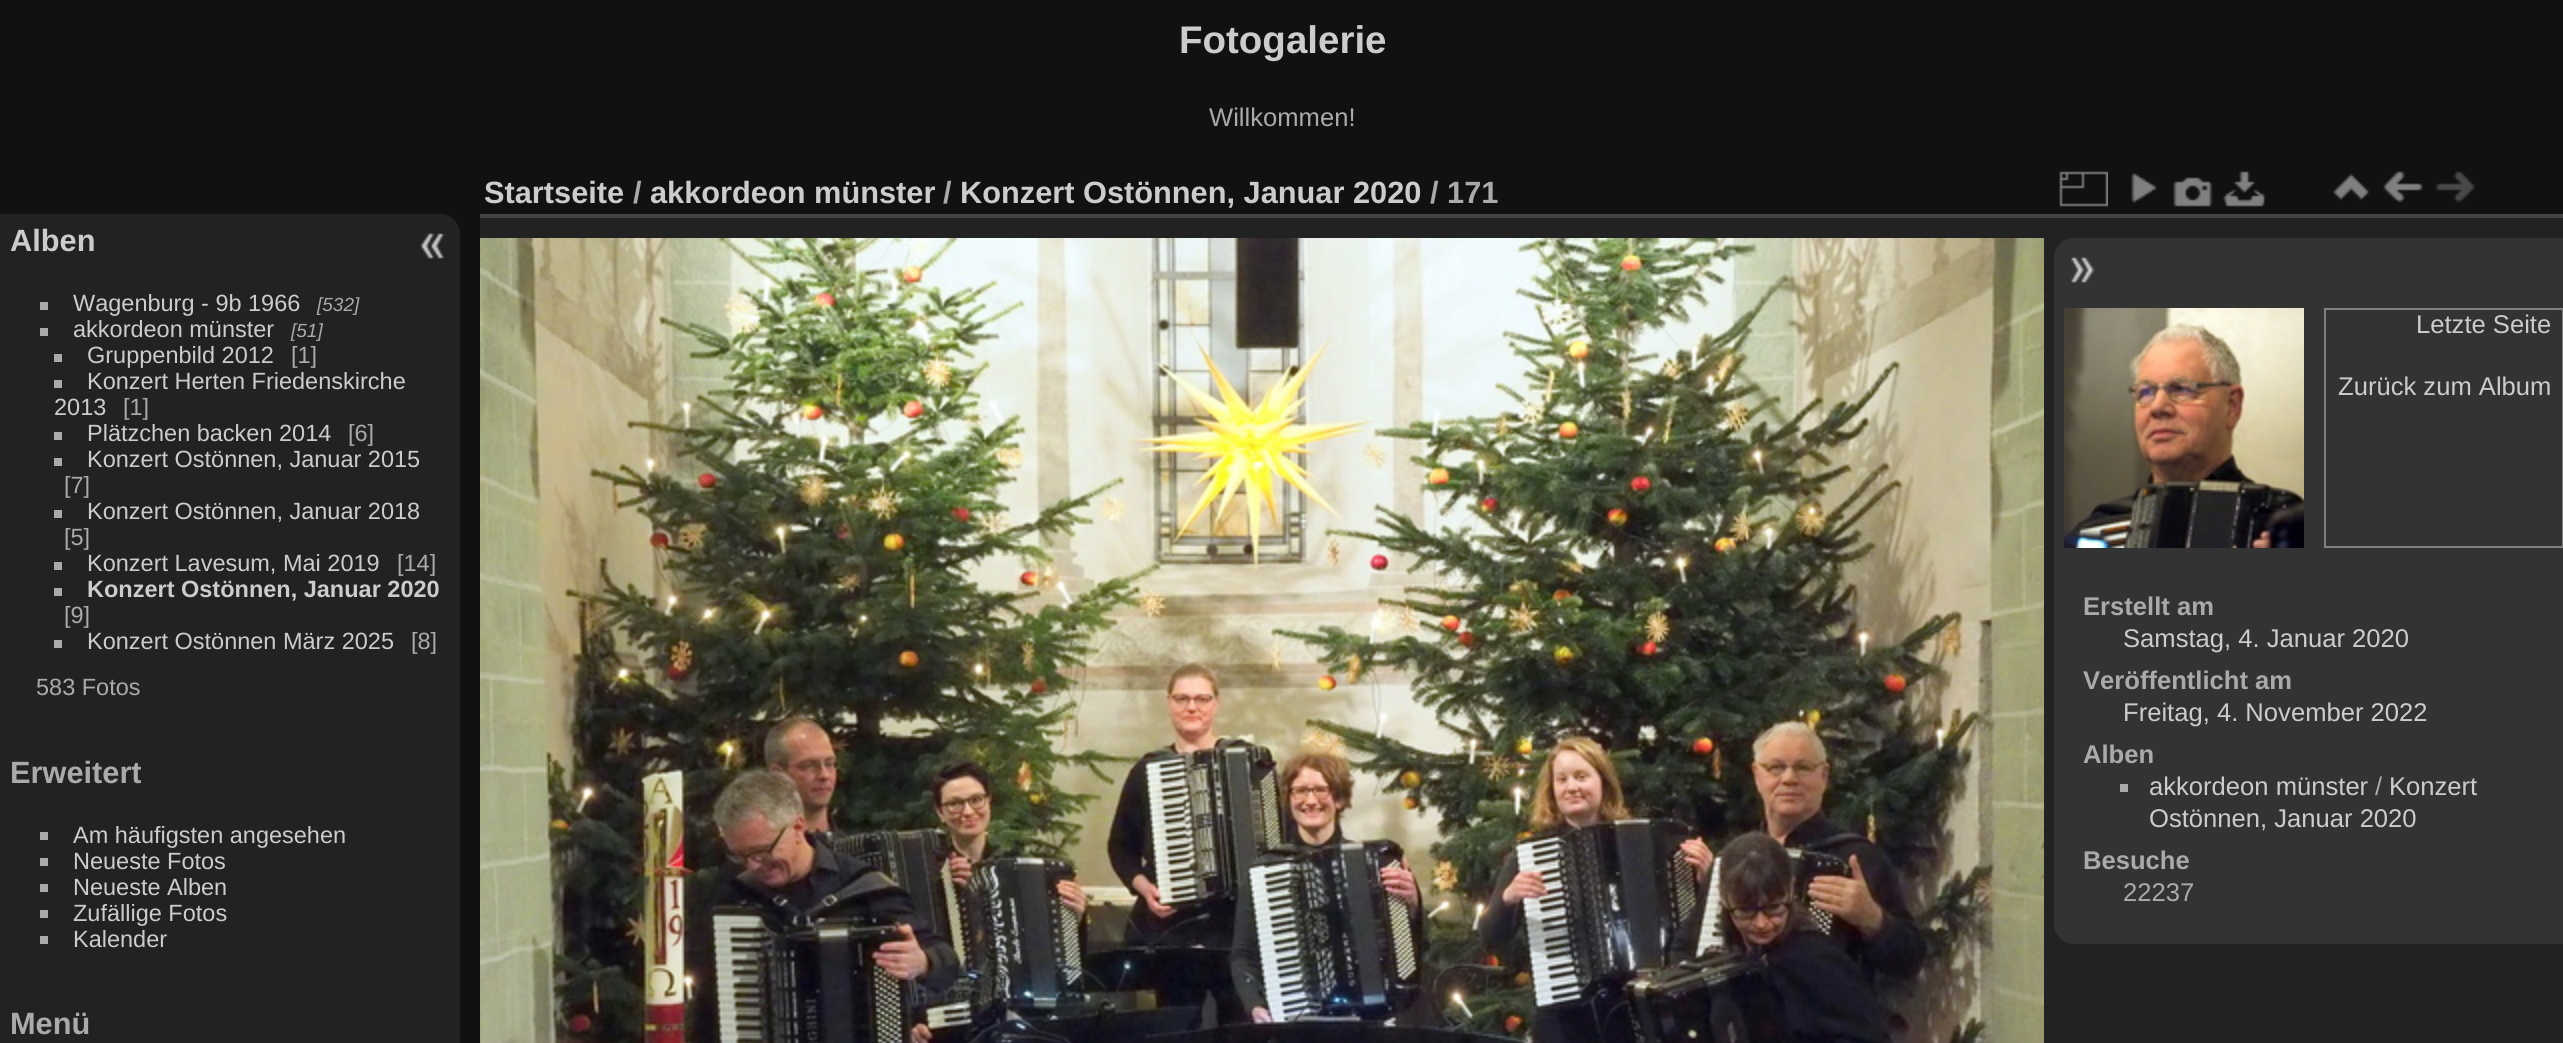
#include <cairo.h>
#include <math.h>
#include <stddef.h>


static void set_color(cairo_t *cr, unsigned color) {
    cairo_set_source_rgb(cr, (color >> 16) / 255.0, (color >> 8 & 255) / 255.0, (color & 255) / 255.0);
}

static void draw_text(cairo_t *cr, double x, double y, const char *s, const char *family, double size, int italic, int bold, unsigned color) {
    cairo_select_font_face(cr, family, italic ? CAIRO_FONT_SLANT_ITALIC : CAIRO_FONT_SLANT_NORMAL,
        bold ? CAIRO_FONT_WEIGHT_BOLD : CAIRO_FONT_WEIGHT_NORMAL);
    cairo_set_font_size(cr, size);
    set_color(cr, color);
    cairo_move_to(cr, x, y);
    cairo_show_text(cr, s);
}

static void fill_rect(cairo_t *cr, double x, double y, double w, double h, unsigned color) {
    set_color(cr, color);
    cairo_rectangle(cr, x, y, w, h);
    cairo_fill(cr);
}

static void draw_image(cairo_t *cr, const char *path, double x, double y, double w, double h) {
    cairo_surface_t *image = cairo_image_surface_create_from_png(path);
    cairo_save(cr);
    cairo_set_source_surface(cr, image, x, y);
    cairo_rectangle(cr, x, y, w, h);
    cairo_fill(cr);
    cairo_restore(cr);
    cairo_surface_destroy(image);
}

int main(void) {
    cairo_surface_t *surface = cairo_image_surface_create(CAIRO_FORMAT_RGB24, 2563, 1043);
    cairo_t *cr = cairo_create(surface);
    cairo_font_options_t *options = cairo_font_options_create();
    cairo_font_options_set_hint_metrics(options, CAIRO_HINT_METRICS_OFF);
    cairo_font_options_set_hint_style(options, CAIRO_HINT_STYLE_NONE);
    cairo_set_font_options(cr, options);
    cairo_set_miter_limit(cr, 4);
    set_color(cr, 0x111111);
    cairo_paint(cr);
    draw_text(cr, 1179, 53, "Fotogalerie", "Liberation Sans", 38.5, 0, 1, 0xCCCCCC);
    draw_text(cr, 1209, 126, "Willkommen!", "Liberation Sans", 25.6, 0, 0, 0xAAAAAA);
    set_color(cr, 0x222222);
    cairo_new_path(cr);
    cairo_move_to(cr, 0, 214);
    cairo_line_to(cr, 440, 214);
    cairo_curve_to(cr, 451, 214, 460, 223, 460, 234);
    cairo_line_to(cr, 460, 1043);
    cairo_curve_to(cr, 460, 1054, 451, 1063, 440, 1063);
    cairo_line_to(cr, 0, 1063);
    cairo_close_path(cr);
    cairo_fill(cr);
    draw_text(cr, 10, 251, "Alben", "Liberation Sans", 30.75, 0, 1, 0xCCCCCC);
    fill_rect(cr, 40, 302, 8, 8, 0xAAAAAA);
    draw_text(cr, 73, 311, "Wagenburg - 9b 1966", "Liberation Sans", 23.5, 0, 0, 0xCCCCCC);
    draw_text(cr, 317, 311, "[532]", "Liberation Sans", 19, 1, 0, 0xAAAAAA);
    fill_rect(cr, 40, 328, 8, 8, 0xAAAAAA);
    draw_text(cr, 73, 337, "akkordeon münster", "Liberation Sans", 23.5, 0, 0, 0xCCCCCC);
    draw_text(cr, 291, 337, "[51]", "Liberation Sans", 19, 1, 0, 0xAAAAAA);
    fill_rect(cr, 54, 354, 8, 8, 0xAAAAAA);
    draw_text(cr, 87, 363, "Gruppenbild 2012", "Liberation Sans", 23.5, 0, 0, 0xCCCCCC);
    draw_text(cr, 291, 363, "[1]", "Liberation Sans", 23.5, 0, 0, 0xAAAAAA);
    fill_rect(cr, 54, 380, 8, 8, 0xAAAAAA);
    draw_text(cr, 87, 389, "Konzert Herten Friedenskirche", "Liberation Sans", 23.5, 0, 0, 0xCCCCCC);
    draw_text(cr, 54, 415, "2013", "Liberation Sans", 23.5, 0, 0, 0xCCCCCC);
    draw_text(cr, 123, 415, "[1]", "Liberation Sans", 23.5, 0, 0, 0xAAAAAA);
    fill_rect(cr, 54, 432, 8, 8, 0xAAAAAA);
    draw_text(cr, 87, 441, "Plätzchen backen 2014", "Liberation Sans", 23.5, 0, 0, 0xCCCCCC);
    draw_text(cr, 348, 441, "[6]", "Liberation Sans", 23.5, 0, 0, 0xAAAAAA);
    fill_rect(cr, 54, 458, 8, 8, 0xAAAAAA);
    draw_text(cr, 87, 467, "Konzert Ostönnen, Januar 2015", "Liberation Sans", 23.5, 0, 0, 0xCCCCCC);
    draw_text(cr, 64, 493, "[7]", "Liberation Sans", 23.5, 0, 0, 0xAAAAAA);
    fill_rect(cr, 54, 510, 8, 8, 0xAAAAAA);
    draw_text(cr, 87, 519, "Konzert Ostönnen, Januar 2018", "Liberation Sans", 23.5, 0, 0, 0xCCCCCC);
    draw_text(cr, 64, 545, "[5]", "Liberation Sans", 23.5, 0, 0, 0xAAAAAA);
    fill_rect(cr, 54, 562, 8, 8, 0xAAAAAA);
    draw_text(cr, 87, 571, "Konzert Lavesum, Mai 2019", "Liberation Sans", 23.5, 0, 0, 0xCCCCCC);
    draw_text(cr, 397, 571, "[14]", "Liberation Sans", 23.5, 0, 0, 0xAAAAAA);
    fill_rect(cr, 54, 588, 8, 8, 0xAAAAAA);
    draw_text(cr, 87, 597, "Konzert Ostönnen, Januar 2020", "Liberation Sans", 23.5, 0, 1, 0xCCCCCC);
    draw_text(cr, 64, 623, "[9]", "Liberation Sans", 23.5, 0, 0, 0xAAAAAA);
    fill_rect(cr, 54, 640, 8, 8, 0xAAAAAA);
    draw_text(cr, 87, 649, "Konzert Ostönnen März 2025", "Liberation Sans", 23.5, 0, 0, 0xCCCCCC);
    draw_text(cr, 411, 649, "[8]", "Liberation Sans", 23.5, 0, 0, 0xAAAAAA);
    draw_text(cr, 36, 695, "583 Fotos", "Liberation Sans", 23.5, 0, 0, 0xAAAAAA);
    draw_text(cr, 10, 783, "Erweitert", "Liberation Sans", 30.75, 0, 1, 0xAAAAAA);
    fill_rect(cr, 40, 832, 8, 8, 0xAAAAAA);
    draw_text(cr, 73, 843, "Am häufigsten angesehen", "Liberation Sans", 23.5, 0, 0, 0xCCCCCC);
    fill_rect(cr, 40, 858, 8, 8, 0xAAAAAA);
    draw_text(cr, 73, 869, "Neueste Fotos", "Liberation Sans", 23.5, 0, 0, 0xCCCCCC);
    fill_rect(cr, 40, 884, 8, 8, 0xAAAAAA);
    draw_text(cr, 73, 895, "Neueste Alben", "Liberation Sans", 23.5, 0, 0, 0xCCCCCC);
    fill_rect(cr, 40, 910, 8, 8, 0xAAAAAA);
    draw_text(cr, 73, 921, "Zufällige Fotos", "Liberation Sans", 23.5, 0, 0, 0xCCCCCC);
    fill_rect(cr, 40, 936, 8, 8, 0xAAAAAA);
    draw_text(cr, 73, 947, "Kalender", "Liberation Sans", 23.5, 0, 0, 0xCCCCCC);
    draw_text(cr, 10, 1034, "Menü", "Liberation Sans", 30.75, 0, 1, 0xAAAAAA);
    fill_rect(cr, 480, 218, 2083, 825, 0x222222);
    fill_rect(cr, 480, 214, 2083, 4, 0x444444);
    draw_text(cr, 484, 203, "Startseite", "Liberation Sans", 30.75, 0, 1, 0xCCCCCC);
    draw_text(cr, 633, 203, "/", "Liberation Sans", 30.75, 0, 1, 0xAAAAAA);
    draw_text(cr, 650, 203, "akkordeon münster", "Liberation Sans", 30.75, 0, 1, 0xCCCCCC);
    draw_text(cr, 943, 203, "/", "Liberation Sans", 30.75, 0, 1, 0xAAAAAA);
    draw_text(cr, 960, 203, "Konzert Ostönnen, Januar 2020", "Liberation Sans", 30.75, 0, 1, 0xCCCCCC);
    draw_text(cr, 1430, 203, "/ 171", "Liberation Sans", 30.75, 0, 1, 0xAAAAAA);
    draw_image(cr, "assets/img1.png", 2059, 171, 49, 36);
    draw_image(cr, "assets/img2.png", 2131, 173, 26, 30);
    draw_image(cr, "assets/img3.png", 2173, 177, 40, 30);
    draw_image(cr, "assets/img4.png", 2223, 171, 43, 36);
    draw_image(cr, "assets/img5.png", 2333, 173, 36, 28);
    draw_image(cr, "assets/img6.png", 2383, 171, 40, 32);
    draw_image(cr, "assets/img7.png", 2435, 171, 40, 32);
    draw_image(cr, "assets/img8.png", 480, 238, 1564, 805);
    set_color(cr, 0x333333);
    cairo_new_path(cr);
    cairo_move_to(cr, 2074, 238);
    cairo_line_to(cr, 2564, 238);
    cairo_line_to(cr, 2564, 944);
    cairo_line_to(cr, 2074, 944);
    cairo_curve_to(cr, 2063, 944, 2054, 935, 2054, 924);
    cairo_line_to(cr, 2054, 258);
    cairo_curve_to(cr, 2054, 247, 2063, 238, 2074, 238);
    cairo_close_path(cr);
    cairo_fill(cr);
    draw_image(cr, "assets/img9.png", 2071, 257, 24, 26);
    draw_image(cr, "assets/img10.png", 2064, 308, 240, 240);
    cairo_rectangle(cr, 2325, 309, 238, 238);
    set_color(cr, 0x808080);
    cairo_stroke(cr);
    draw_text(cr, 2416, 333, "Letzte Seite", "Liberation Sans", 25.6, 0, 0, 0xCCCCCC);
    draw_text(cr, 2338, 395, "Zurück zum Album", "Liberation Sans", 25.6, 0, 0, 0xCCCCCC);
    draw_text(cr, 2083, 615, "Erstellt am", "Liberation Sans", 25.6, 0, 1, 0xAAAAAA);
    draw_text(cr, 2123, 647, "Samstag, 4. Januar 2020", "Liberation Sans", 25.6, 0, 0, 0xCCCCCC);
    draw_text(cr, 2083, 689, "Veröffentlicht am", "Liberation Sans", 25.6, 0, 1, 0xAAAAAA);
    draw_text(cr, 2123, 721, "Freitag, 4. November 2022", "Liberation Sans", 25.6, 0, 0, 0xCCCCCC);
    draw_text(cr, 2083, 763, "Alben", "Liberation Sans", 25.6, 0, 1, 0xAAAAAA);
    fill_rect(cr, 2120, 784, 8, 8, 0xAAAAAA);
    draw_text(cr, 2149, 795, "akkordeon münster", "Liberation Sans", 25.6, 0, 0, 0xCCCCCC);
    draw_text(cr, 2375, 795, "/", "Liberation Sans", 25.6, 0, 0, 0xAAAAAA);
    draw_text(cr, 2389, 795, "Konzert", "Liberation Sans", 25.6, 0, 0, 0xCCCCCC);
    draw_text(cr, 2149, 827, "Ostönnen, Januar 2020", "Liberation Sans", 25.6, 0, 0, 0xCCCCCC);
    draw_text(cr, 2083, 869, "Besuche", "Liberation Sans", 25.6, 0, 1, 0xAAAAAA);
    draw_text(cr, 2123, 901, "22237", "Liberation Sans", 25.6, 0, 0, 0xAAAAAA);
    draw_image(cr, "assets/img11.png", 420, 233, 25, 26);
    cairo_surface_write_to_png(surface, "output.png");
    cairo_font_options_destroy(options);
    cairo_destroy(cr);
    cairo_surface_destroy(surface);
    return 0;
}
